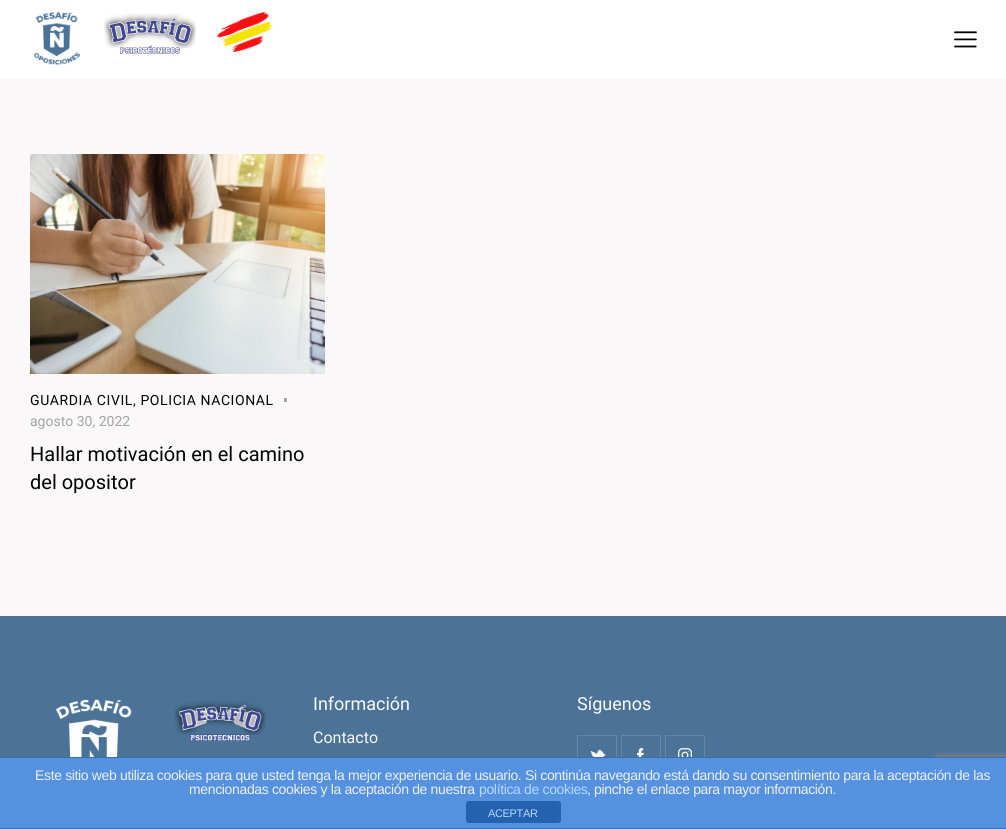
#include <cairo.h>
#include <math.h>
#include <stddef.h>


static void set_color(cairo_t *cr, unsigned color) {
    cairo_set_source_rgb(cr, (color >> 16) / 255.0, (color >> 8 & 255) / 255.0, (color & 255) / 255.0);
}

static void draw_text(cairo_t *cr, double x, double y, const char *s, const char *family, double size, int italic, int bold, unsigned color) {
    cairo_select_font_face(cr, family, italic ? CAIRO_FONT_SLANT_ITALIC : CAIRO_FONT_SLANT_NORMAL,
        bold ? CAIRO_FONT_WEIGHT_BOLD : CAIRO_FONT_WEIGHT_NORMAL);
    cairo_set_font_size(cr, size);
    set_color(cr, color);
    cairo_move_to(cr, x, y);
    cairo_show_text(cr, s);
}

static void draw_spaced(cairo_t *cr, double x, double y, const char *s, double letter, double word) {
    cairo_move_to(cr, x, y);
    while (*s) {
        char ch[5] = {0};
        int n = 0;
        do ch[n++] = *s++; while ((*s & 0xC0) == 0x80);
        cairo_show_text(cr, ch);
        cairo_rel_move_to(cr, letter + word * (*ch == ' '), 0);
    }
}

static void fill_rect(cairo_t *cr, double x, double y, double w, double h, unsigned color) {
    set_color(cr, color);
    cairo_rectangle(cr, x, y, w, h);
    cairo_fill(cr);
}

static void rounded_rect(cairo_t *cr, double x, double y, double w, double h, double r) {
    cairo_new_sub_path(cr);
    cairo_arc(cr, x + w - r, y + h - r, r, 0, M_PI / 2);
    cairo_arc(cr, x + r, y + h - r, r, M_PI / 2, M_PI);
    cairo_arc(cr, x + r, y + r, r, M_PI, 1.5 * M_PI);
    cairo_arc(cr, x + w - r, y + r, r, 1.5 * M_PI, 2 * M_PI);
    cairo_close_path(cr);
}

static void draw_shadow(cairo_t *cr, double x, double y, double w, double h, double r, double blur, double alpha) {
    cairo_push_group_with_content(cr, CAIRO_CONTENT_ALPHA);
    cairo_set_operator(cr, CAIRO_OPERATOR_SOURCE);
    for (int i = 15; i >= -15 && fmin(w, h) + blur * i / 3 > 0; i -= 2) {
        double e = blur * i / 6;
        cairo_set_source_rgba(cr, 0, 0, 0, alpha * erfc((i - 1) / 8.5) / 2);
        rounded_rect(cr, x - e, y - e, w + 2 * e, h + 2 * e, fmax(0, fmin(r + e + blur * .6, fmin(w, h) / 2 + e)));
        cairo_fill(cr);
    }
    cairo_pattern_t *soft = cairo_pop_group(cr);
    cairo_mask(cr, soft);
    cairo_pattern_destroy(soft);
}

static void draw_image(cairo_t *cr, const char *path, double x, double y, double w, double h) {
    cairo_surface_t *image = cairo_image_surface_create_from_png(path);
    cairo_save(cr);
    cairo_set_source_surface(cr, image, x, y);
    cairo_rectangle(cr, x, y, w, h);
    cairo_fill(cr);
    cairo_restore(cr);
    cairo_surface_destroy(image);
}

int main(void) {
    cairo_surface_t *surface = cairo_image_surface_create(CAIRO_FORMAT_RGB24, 1006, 829);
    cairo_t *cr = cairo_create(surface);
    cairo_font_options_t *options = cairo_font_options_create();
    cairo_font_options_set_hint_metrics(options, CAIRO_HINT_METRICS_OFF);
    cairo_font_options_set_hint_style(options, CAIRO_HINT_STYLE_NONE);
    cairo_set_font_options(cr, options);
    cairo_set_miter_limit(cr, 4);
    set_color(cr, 0xFAF8F8);
    cairo_paint(cr);
    fill_rect(cr, 0, 0, 1006, 79, 0xFFFFFF);
    draw_image(cr, "assets/img1.png", 34, 12, 47, 53);
    draw_image(cr, "assets/img2.png", 104, 13, 92, 41);
    draw_image(cr, "assets/img3.png", 217, 12, 56, 40);
    draw_image(cr, "assets/img4.png", 954, 31, 23, 17);
    draw_image(cr, "assets/img5.png", 30, 154, 295, 220);
    cairo_select_font_face(cr, "Roboto", CAIRO_FONT_SLANT_NORMAL, CAIRO_FONT_WEIGHT_NORMAL);
    cairo_set_font_size(cr, 14);
    set_color(cr, 0x020202);
    draw_spaced(cr, 30, 405, "GUARDIA CIVIL, POLICIA NACIONAL", 0.6, 0);
    fill_rect(cr, 284, 398, 3, 4, 0xA5A3A3);
    draw_text(cr, 30, 426, "agosto 30, 2022", "Roboto", 14, 0, 0, 0xA5A3A3);
    draw_text(cr, 30, 461, "Hallar motivación en el camino", "Roboto", 20, 0, 0, 0x020202);
    draw_text(cr, 30, 489, "del opositor", "Roboto", 20, 0, 0, 0x020202);
    fill_rect(cr, 0, 616, 1006, 141, 0x4A7397);
    draw_image(cr, "assets/img6.png", 55, 699, 77, 58);
    draw_image(cr, "assets/img7.png", 174, 701, 92, 40);
    draw_text(cr, 313, 710, "Información", "Roboto", 18, 0, 0, 0xFAF8F8);
    draw_text(cr, 313, 743, "Contacto", "Roboto", 16, 0, 0, 0xFAF8F8);
    draw_text(cr, 577, 710, "Síguenos", "Roboto", 18, 0, 0, 0xFAF8F8);
    cairo_rectangle(cr, 577.5, 735.5, 39, 39);
    set_color(cr, 0x6487A6);
    cairo_set_line_width(cr, 1);
    cairo_stroke(cr);
    draw_image(cr, "assets/img8.png", 590, 749, 16, 8);
    cairo_rectangle(cr, 621.5, 735.5, 39, 39);
    cairo_stroke(cr);
    draw_image(cr, "assets/img9.png", 637, 748, 7, 9);
    cairo_rectangle(cr, 665.5, 735.5, 39, 39);
    cairo_stroke(cr);
    draw_image(cr, "assets/img10.png", 678, 748, 14, 9);
    set_color(cr, 0x808080);
    draw_shadow(cr, 936, 755, 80, 60, 2, 2.5, 1);
    fill_rect(cr, 0, 758, 1006, 70, 0x5492E0);
    fill_rect(cr, 0, 757, 1006, 1, 0x3F6DA7);
    fill_rect(cr, 0, 828, 1006, 1, 0x3F6DA7);
    cairo_select_font_face(cr, "Liberation Sans", CAIRO_FONT_SLANT_NORMAL, CAIRO_FONT_WEIGHT_NORMAL);
    cairo_set_font_size(cr, 14);
    set_color(cr, 0xEEEEEE);
    draw_spaced(cr, 35, 780, "Este sitio web utiliza cookies para que usted tenga la mejor experiencia de usuario. Si continúa navegando está dando su consentimiento para la aceptación de las", -0.35, 0);
    draw_spaced(cr, 189, 794, "mencionadas cookies y la aceptación de nuestra", -0.35, 0);
    set_color(cr, 0xB7D7FF);
    draw_spaced(cr, 479, 794, "política de cookies", -0.35, 0);
    set_color(cr, 0xEEEEEE);
    draw_spaced(cr, 587, 794, ", pinche el enlace para mayor información.", -0.35, 0);
    set_color(cr, 0x2462B0);
    rounded_rect(cr, 466, 801, 95, 22, 3);
    cairo_fill(cr);
    cairo_set_font_size(cr, 11);
    set_color(cr, 0xB7D7FF);
    draw_spaced(cr, 488, 817, "ACEPTAR", -0.35, 0);
    cairo_surface_write_to_png(surface, "output.png");
    cairo_font_options_destroy(options);
    cairo_destroy(cr);
    cairo_surface_destroy(surface);
    return 0;
}
